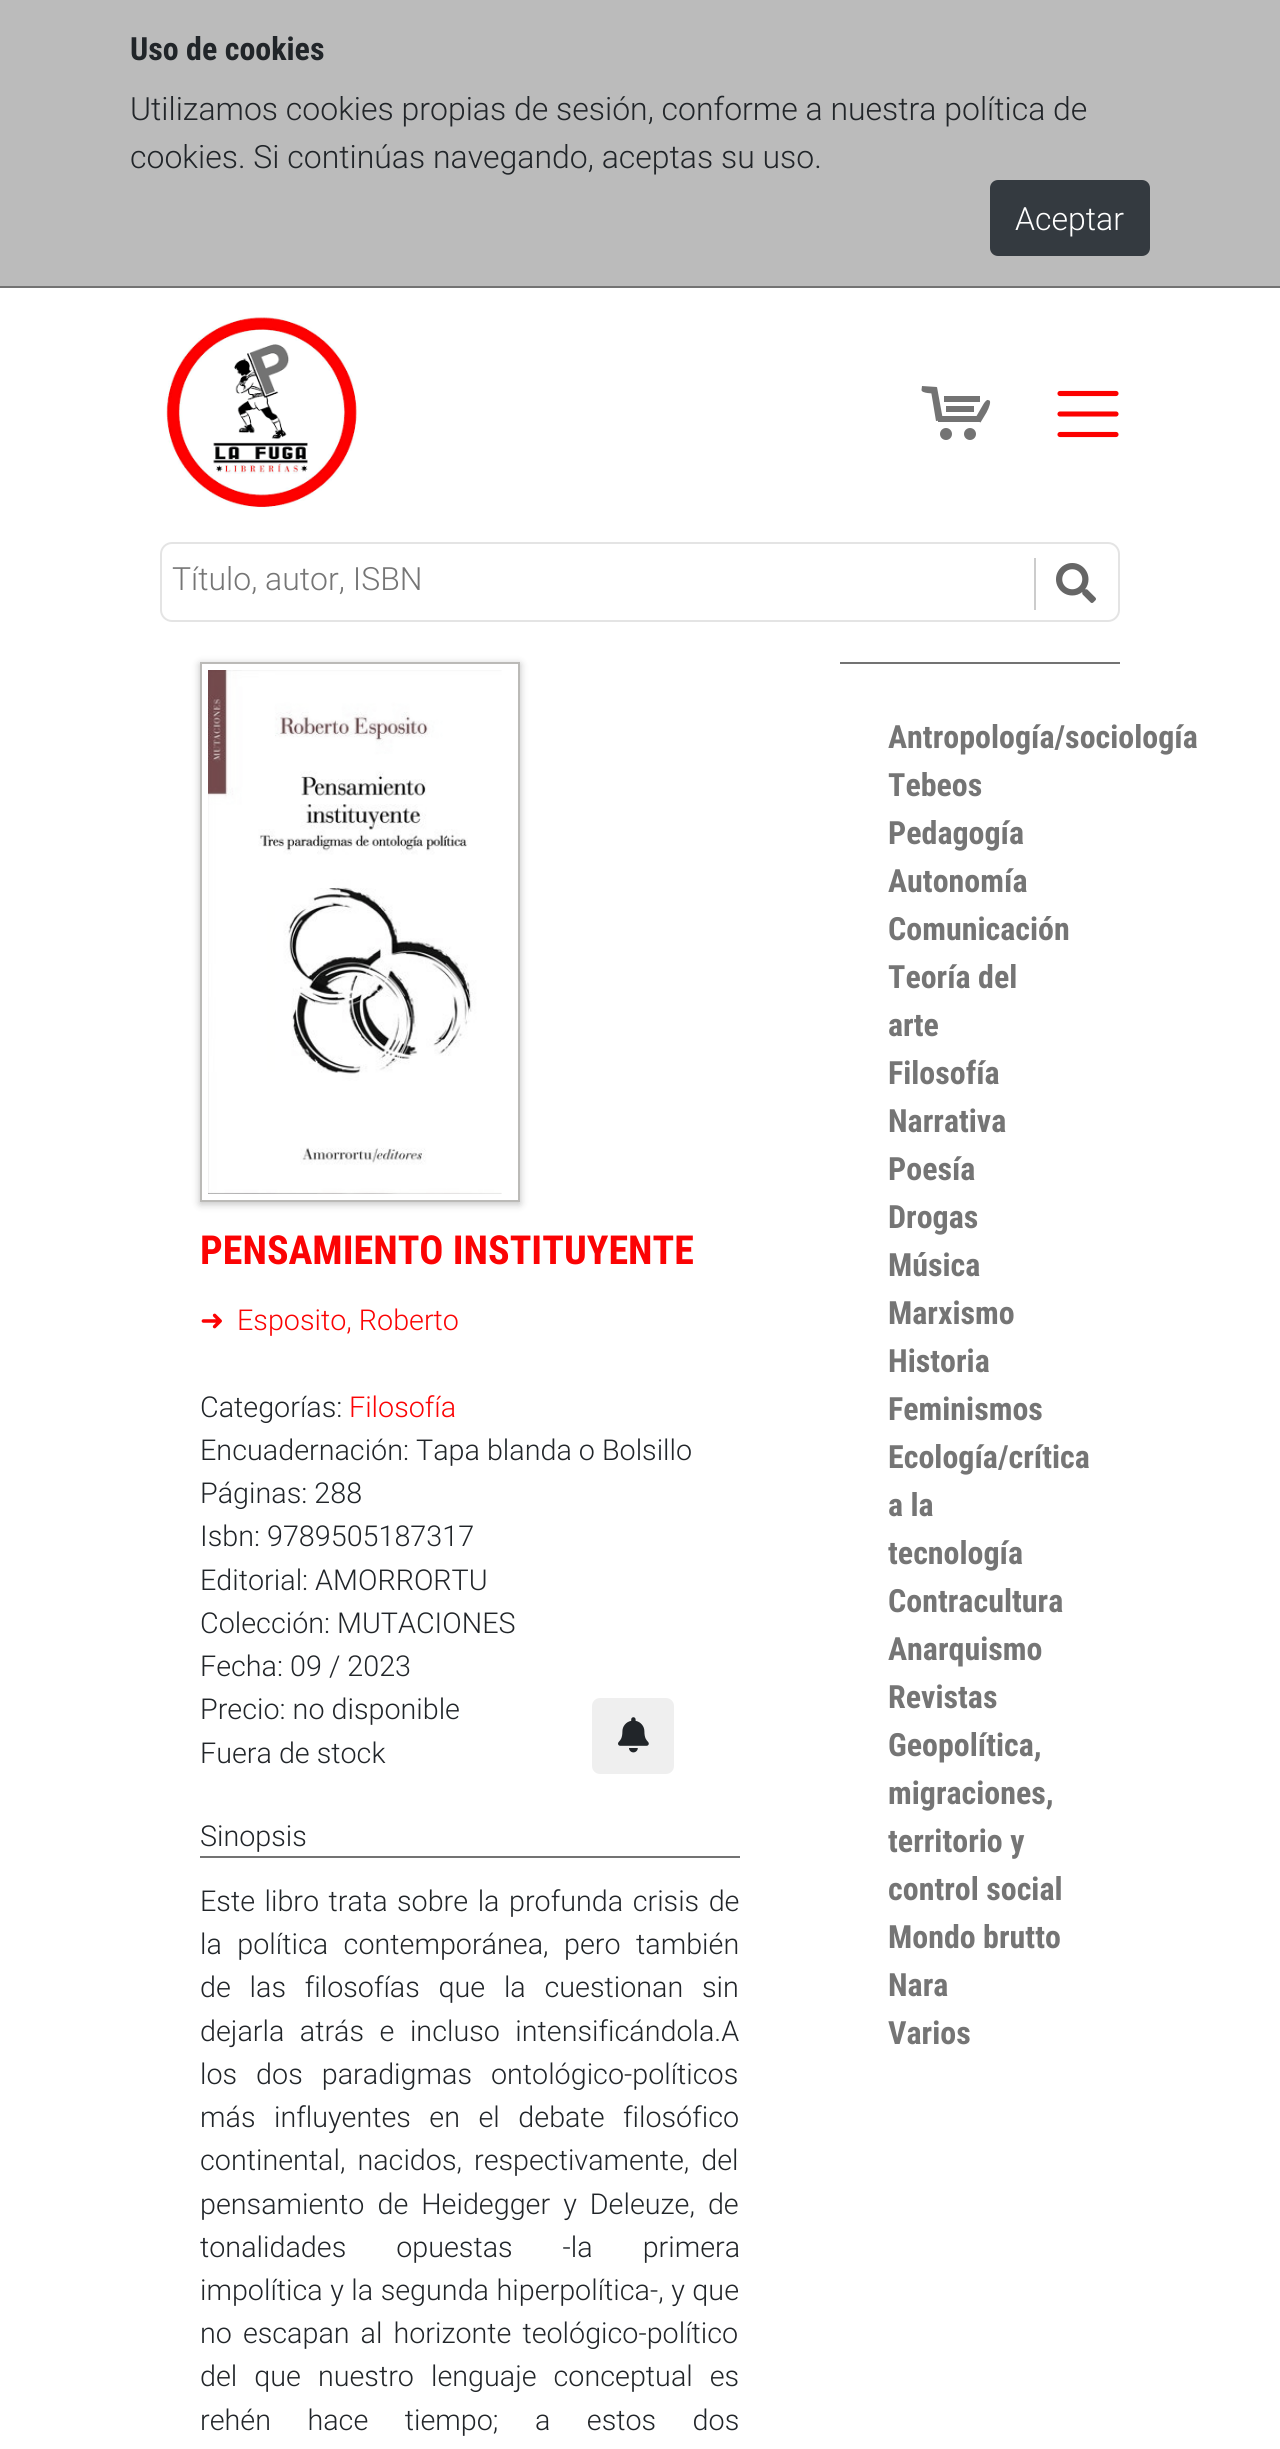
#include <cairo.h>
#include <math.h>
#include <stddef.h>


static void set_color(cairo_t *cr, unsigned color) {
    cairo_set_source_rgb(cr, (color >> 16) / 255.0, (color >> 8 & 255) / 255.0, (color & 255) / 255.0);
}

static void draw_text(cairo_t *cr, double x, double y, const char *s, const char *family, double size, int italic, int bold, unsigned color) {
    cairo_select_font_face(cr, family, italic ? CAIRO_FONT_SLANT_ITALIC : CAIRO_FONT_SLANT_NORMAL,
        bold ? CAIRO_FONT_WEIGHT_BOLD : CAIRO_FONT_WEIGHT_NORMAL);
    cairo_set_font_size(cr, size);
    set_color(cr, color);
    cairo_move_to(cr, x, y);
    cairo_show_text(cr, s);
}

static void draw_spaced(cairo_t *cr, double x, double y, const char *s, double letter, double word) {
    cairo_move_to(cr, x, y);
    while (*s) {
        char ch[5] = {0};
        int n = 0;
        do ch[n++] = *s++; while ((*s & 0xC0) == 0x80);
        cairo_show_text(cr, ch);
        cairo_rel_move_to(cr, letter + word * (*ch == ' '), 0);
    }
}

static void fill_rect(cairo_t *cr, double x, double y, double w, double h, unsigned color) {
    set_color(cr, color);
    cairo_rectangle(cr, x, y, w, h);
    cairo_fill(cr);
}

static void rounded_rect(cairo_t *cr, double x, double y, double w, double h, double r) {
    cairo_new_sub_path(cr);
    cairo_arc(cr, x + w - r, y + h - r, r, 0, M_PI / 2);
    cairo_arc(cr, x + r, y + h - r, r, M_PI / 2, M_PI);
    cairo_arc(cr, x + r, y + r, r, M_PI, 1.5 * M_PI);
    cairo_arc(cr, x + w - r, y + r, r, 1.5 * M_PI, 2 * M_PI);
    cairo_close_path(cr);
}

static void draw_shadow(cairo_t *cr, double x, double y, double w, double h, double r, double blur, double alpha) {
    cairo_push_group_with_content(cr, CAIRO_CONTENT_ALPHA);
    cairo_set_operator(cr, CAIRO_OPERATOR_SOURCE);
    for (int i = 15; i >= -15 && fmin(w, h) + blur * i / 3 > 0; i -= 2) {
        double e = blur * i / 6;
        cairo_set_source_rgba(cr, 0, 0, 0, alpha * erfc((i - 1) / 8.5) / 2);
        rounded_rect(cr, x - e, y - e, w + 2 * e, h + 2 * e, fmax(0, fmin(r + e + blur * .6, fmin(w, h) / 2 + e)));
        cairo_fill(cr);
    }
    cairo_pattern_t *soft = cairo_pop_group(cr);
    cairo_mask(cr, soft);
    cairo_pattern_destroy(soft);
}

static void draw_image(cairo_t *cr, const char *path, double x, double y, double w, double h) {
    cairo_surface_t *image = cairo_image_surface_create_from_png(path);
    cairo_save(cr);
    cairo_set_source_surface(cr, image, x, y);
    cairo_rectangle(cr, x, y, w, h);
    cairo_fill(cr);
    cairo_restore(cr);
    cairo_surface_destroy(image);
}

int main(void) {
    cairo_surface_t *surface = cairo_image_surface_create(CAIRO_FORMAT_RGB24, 1280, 2449);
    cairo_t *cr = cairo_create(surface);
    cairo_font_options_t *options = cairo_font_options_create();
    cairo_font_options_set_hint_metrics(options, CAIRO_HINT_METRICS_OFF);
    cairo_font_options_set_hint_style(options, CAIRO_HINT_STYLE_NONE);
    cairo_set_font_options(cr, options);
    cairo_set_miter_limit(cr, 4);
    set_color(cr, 0xFFFFFF);
    cairo_paint(cr);
    fill_rect(cr, 0, 0, 1280, 286, 0xBBBBBB);
    fill_rect(cr, 0, 286, 1280, 2, 0x737373);
    draw_text(cr, 130, 60, "Uso de cookies", "Roboto Condensed", 32, 0, 1, 0x212529);
    draw_text(cr, 130, 120, "Utilizamos cookies propias de sesión, conforme a nuestra política de", "Roboto Light", 32, 0, 0, 0x212529);
    draw_text(cr, 130, 168, "cookies. Si continúas navegando, aceptas su uso.", "Roboto Light", 32, 0, 0, 0x212529);
    set_color(cr, 0x343A40);
    rounded_rect(cr, 991, 181, 158, 74, 7);
    cairo_fill_preserve(cr);
    cairo_stroke(cr);
    draw_text(cr, 1015, 230, "Aceptar", "Roboto Light", 32, 0, 0, 0xFFFFFF);
    draw_image(cr, "assets/img1.png", 166, 317, 192, 191);
    set_color(cr, 0x737373);
    cairo_new_path(cr);
    cairo_move_to(cr, 922, 386);
    cairo_line_to(cr, 936.5, 387);
    cairo_line_to(cr, 935.5, 393.5);
    cairo_curve_to(cr, 933.5, 393.5, 921.5, 393.5, 921.5, 390);
    cairo_close_path(cr);
    cairo_fill(cr);
    cairo_new_path(cr);
    cairo_move_to(cr, 937, 387);
    cairo_line_to(cr, 943, 420);
    cairo_line_to(cr, 936, 421);
    cairo_line_to(cr, 930.5, 388);
    cairo_close_path(cr);
    cairo_fill(cr);
    fill_rect(cr, 938, 416, 42, 6, 0x737373);
    cairo_new_path(cr);
    cairo_move_to(cr, 986.5, 412.5);
    cairo_line_to(cr, 980.5, 422.5);
    cairo_line_to(cr, 974.5, 419.5);
    cairo_line_to(cr, 983.5, 404);
    cairo_curve_to(cr, 985, 401.5, 987, 399.5, 988, 400);
    cairo_line_to(cr, 989.5, 400.5);
    cairo_curve_to(cr, 991, 401.5, 989.5, 407, 986.5, 412.5);
    cairo_close_path(cr);
    cairo_fill(cr);
    fill_rect(cr, 946, 406, 28, 6, 0x737373);
    fill_rect(cr, 944, 396, 36, 6, 0x737373);
    cairo_arc(cr, 946, 434, 6, 0, 2 * M_PI);
    cairo_fill(cr);
    cairo_arc(cr, 970, 434, 6, 0, 2 * M_PI);
    cairo_fill(cr);
    cairo_new_path(cr);
    cairo_move_to(cr, 1060, 393.5);
    cairo_line_to(cr, 1116, 393.5);
    cairo_move_to(cr, 1060, 414);
    cairo_line_to(cr, 1116, 414);
    cairo_move_to(cr, 1060, 434.5);
    cairo_line_to(cr, 1116, 434.5);
    set_color(cr, 0xFC0100);
    cairo_set_line_width(cr, 5.1);
    cairo_set_line_cap(cr, CAIRO_LINE_CAP_ROUND);
    cairo_stroke(cr);
    rounded_rect(cr, 161, 543, 958, 78, 11);
    set_color(cr, 0xE4E4E4);
    cairo_set_line_width(cr, 2);
    cairo_set_line_cap(cr, CAIRO_LINE_CAP_BUTT);
    cairo_stroke(cr);
    draw_text(cr, 172, 590, "Título, autor, ISBN", "Roboto Light", 32, 0, 0, 0x757575);
    fill_rect(cr, 1034, 558, 2, 52, 0xCCCCCC);
    draw_image(cr, "assets/img2.png", 1056, 563, 40, 40);
    cairo_save(cr);
    cairo_set_fill_rule(cr, CAIRO_FILL_RULE_EVEN_ODD);
    cairo_new_path(cr);
    cairo_move_to(cr, 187, 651);
    cairo_line_to(cr, 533, 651);
    cairo_line_to(cr, 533, 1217);
    cairo_line_to(cr, 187, 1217);
    cairo_close_path(cr);
    cairo_move_to(cr, 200, 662);
    cairo_line_to(cr, 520, 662);
    cairo_line_to(cr, 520, 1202);
    cairo_line_to(cr, 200, 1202);
    cairo_close_path(cr);
    cairo_clip(cr);
    set_color(cr, 0x000000);
    draw_shadow(cr, 200, 664, 320, 540, 0, 4, 0.25);
    cairo_restore(cr);
    cairo_rectangle(cr, 201, 663, 318, 538);
    set_color(cr, 0xBBBAB7);
    cairo_stroke(cr);
    draw_image(cr, "assets/img3.png", 208, 670, 294, 524);
    draw_text(cr, 200, 1264, "PENSAMIENTO INSTITUYENTE", "Roboto Condensed", 40, 0, 1, 0xFB0304);
    draw_text(cr, 200, 1330, "➜", "DejaVu Sans", 28.75, 0, 0, 0xFB0304);
    draw_text(cr, 237, 1330, "Esposito, Roberto", "Roboto Light", 28.75, 0, 0, 0xFB0304);
    draw_text(cr, 200, 1417, "Categorías:", "Roboto Light", 28.75, 0, 0, 0x212529);
    draw_text(cr, 349, 1417, "Filosofía", "Roboto Light", 28.75, 0, 0, 0xFB0304);
    draw_text(cr, 200, 1460, "Encuadernación: Tapa blanda o Bolsillo", "Roboto Light", 28.75, 0, 0, 0x212529);
    draw_text(cr, 200, 1503, "Páginas: 288", "Roboto Light", 28.75, 0, 0, 0x212529);
    draw_text(cr, 200, 1546, "Isbn: 9789505187317", "Roboto Light", 28.75, 0, 0, 0x212529);
    draw_text(cr, 200, 1590, "Editorial: AMORRORTU", "Roboto Light", 28.75, 0, 0, 0x212529);
    draw_text(cr, 200, 1633, "Colección: MUTACIONES", "Roboto Light", 28.75, 0, 0, 0x212529);
    draw_text(cr, 200, 1676, "Fecha: 09 / 2023", "Roboto Light", 28.75, 0, 0, 0x212529);
    draw_text(cr, 200, 1719, "Precio: no disponible", "Roboto Light", 28.75, 0, 0, 0x212529);
    set_color(cr, 0xEFEFEF);
    rounded_rect(cr, 592, 1698, 82, 76, 8);
    cairo_fill(cr);
    draw_image(cr, "assets/img4.png", 618, 1717, 31, 36);
    draw_text(cr, 200, 1763, "Fuera de stock", "Roboto Light", 28.75, 0, 0, 0x212529);
    fill_rect(cr, 200, 1856, 540, 2, 0x737373);
    draw_text(cr, 200, 1846, "Sinopsis", "Roboto Light", 28.75, 0, 0, 0x212529);
    draw_spaced(cr, 200, 1911, "Este libro trata sobre la profunda crisis de", 0, 2.5);
    draw_spaced(cr, 200, 1954, "la política contemporánea, pero también", 0, 8.5);
    draw_spaced(cr, 200, 1997, "de las filosofías que la cuestionan sin", 0, 11.75);
    draw_spaced(cr, 200, 2041, "dejarla atrás e incluso intensificándola.A", 0, 8.5);
    draw_spaced(cr, 200, 2084, "los dos paradigmas ontológico-políticos", 0, 12);
    draw_spaced(cr, 200, 2127, "más influyentes en el debate filosófico", 0, 11.5);
    draw_spaced(cr, 200, 2170, "continental, nacidos, respectivamente, del", 0, 5);
    draw_spaced(cr, 200, 2214, "pensamiento de Heidegger y Deleuze, de", 0, 6);
    draw_spaced(cr, 200, 2257, "tonalidades opuestas -la primera", 0, 43);
    draw_spaced(cr, 200, 2300, "impolítica y la segunda hiperpolítica-, y que", 0, 0.5);
    draw_spaced(cr, 200, 2343, "no escapan al horizonte teológico-político", 0, 4);
    draw_spaced(cr, 200, 2386, "del que nuestro lenguaje conceptual es", 0, 10);
    draw_spaced(cr, 200, 2430, "rehén hace tiempo; a estos dos", 0, 29.5);
    fill_rect(cr, 840, 662, 280, 2, 0x737373);
    draw_text(cr, 888, 748, "Antropología/sociología", "Roboto Condensed", 32, 0, 1, 0x757575);
    draw_text(cr, 888, 796, "Tebeos", "Roboto Condensed", 32, 0, 1, 0x757575);
    draw_text(cr, 888, 844, "Pedagogía", "Roboto Condensed", 32, 0, 1, 0x757575);
    draw_text(cr, 888, 892, "Autonomía", "Roboto Condensed", 32, 0, 1, 0x757575);
    draw_text(cr, 888, 940, "Comunicación", "Roboto Condensed", 32, 0, 1, 0x757575);
    draw_text(cr, 888, 988, "Teoría del", "Roboto Condensed", 32, 0, 1, 0x757575);
    draw_text(cr, 888, 1036, "arte", "Roboto Condensed", 32, 0, 1, 0x757575);
    draw_text(cr, 888, 1084, "Filosofía", "Roboto Condensed", 32, 0, 1, 0x757575);
    draw_text(cr, 888, 1132, "Narrativa", "Roboto Condensed", 32, 0, 1, 0x757575);
    draw_text(cr, 888, 1180, "Poesía", "Roboto Condensed", 32, 0, 1, 0x757575);
    draw_text(cr, 888, 1228, "Drogas", "Roboto Condensed", 32, 0, 1, 0x757575);
    draw_text(cr, 888, 1276, "Música", "Roboto Condensed", 32, 0, 1, 0x757575);
    draw_text(cr, 888, 1324, "Marxismo", "Roboto Condensed", 32, 0, 1, 0x757575);
    draw_text(cr, 888, 1372, "Historia", "Roboto Condensed", 32, 0, 1, 0x757575);
    draw_text(cr, 888, 1420, "Feminismos", "Roboto Condensed", 32, 0, 1, 0x757575);
    draw_text(cr, 888, 1468, "Ecología/crítica", "Roboto Condensed", 32, 0, 1, 0x757575);
    draw_text(cr, 888, 1516, "a la", "Roboto Condensed", 32, 0, 1, 0x757575);
    draw_text(cr, 888, 1564, "tecnología", "Roboto Condensed", 32, 0, 1, 0x757575);
    draw_text(cr, 888, 1612, "Contracultura", "Roboto Condensed", 32, 0, 1, 0x757575);
    draw_text(cr, 888, 1660, "Anarquismo", "Roboto Condensed", 32, 0, 1, 0x757575);
    draw_text(cr, 888, 1708, "Revistas", "Roboto Condensed", 32, 0, 1, 0x757575);
    draw_text(cr, 888, 1756, "Geopolítica,", "Roboto Condensed", 32, 0, 1, 0x757575);
    draw_text(cr, 888, 1804, "migraciones,", "Roboto Condensed", 32, 0, 1, 0x757575);
    draw_text(cr, 888, 1852, "territorio y", "Roboto Condensed", 32, 0, 1, 0x757575);
    draw_text(cr, 888, 1900, "control social", "Roboto Condensed", 32, 0, 1, 0x757575);
    draw_text(cr, 888, 1948, "Mondo brutto", "Roboto Condensed", 32, 0, 1, 0x757575);
    draw_text(cr, 888, 1996, "Nara", "Roboto Condensed", 32, 0, 1, 0x757575);
    draw_text(cr, 888, 2044, "Varios", "Roboto Condensed", 32, 0, 1, 0x757575);
    cairo_surface_write_to_png(surface, "output.png");
    cairo_font_options_destroy(options);
    cairo_destroy(cr);
    cairo_surface_destroy(surface);
    return 0;
}
